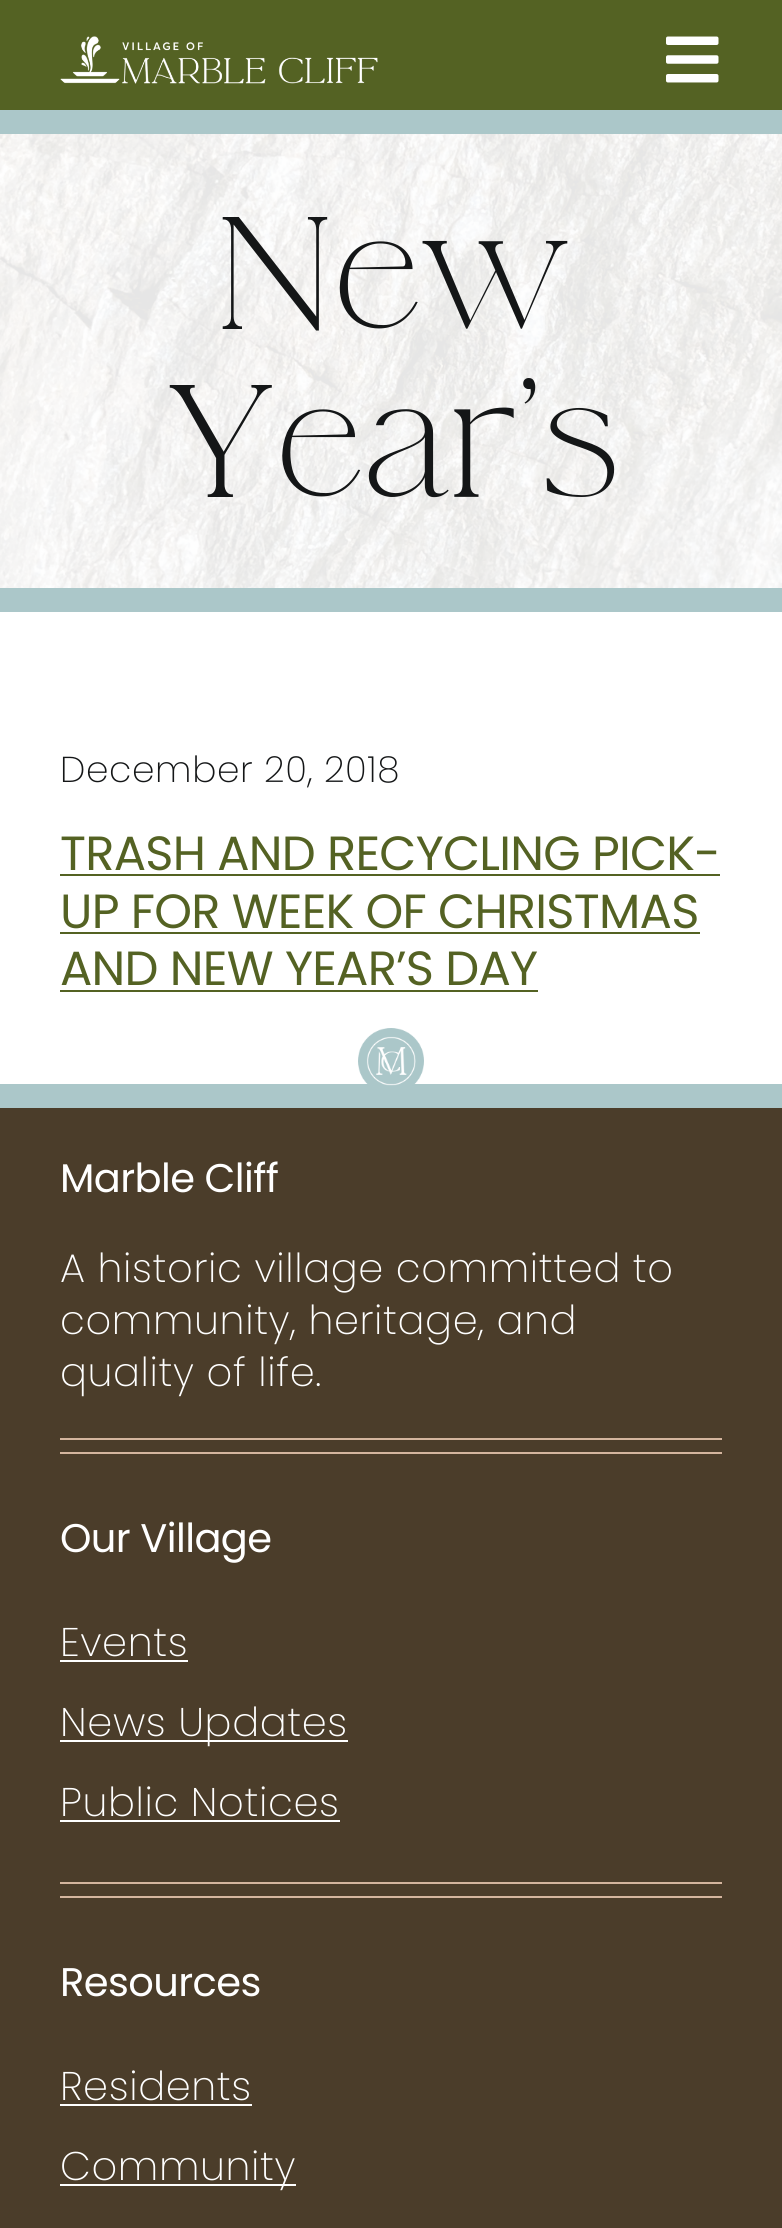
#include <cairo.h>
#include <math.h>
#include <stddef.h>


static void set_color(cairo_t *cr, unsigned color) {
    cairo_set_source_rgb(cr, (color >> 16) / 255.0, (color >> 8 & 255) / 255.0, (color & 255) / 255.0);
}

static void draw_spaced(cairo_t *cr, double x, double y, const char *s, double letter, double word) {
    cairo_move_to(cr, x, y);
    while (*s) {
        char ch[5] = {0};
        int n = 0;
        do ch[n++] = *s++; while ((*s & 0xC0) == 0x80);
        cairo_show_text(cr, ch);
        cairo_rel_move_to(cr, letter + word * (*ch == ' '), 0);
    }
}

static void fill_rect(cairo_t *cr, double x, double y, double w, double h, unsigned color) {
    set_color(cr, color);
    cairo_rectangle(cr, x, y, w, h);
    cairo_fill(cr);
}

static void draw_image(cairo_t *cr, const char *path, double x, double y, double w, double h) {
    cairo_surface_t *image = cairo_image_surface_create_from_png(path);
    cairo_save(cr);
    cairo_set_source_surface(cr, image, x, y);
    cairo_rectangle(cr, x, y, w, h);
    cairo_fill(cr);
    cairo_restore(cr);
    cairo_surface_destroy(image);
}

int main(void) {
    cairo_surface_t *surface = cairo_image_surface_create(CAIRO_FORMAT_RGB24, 782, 2228);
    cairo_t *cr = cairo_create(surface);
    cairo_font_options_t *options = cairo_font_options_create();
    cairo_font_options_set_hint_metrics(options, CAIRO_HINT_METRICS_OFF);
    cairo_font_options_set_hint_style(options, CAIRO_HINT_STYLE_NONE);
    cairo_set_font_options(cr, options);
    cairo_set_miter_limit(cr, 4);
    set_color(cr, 0xFFFFFF);
    cairo_paint(cr);
    fill_rect(cr, 0, 0, 782, 110, 0x546223);
    draw_image(cr, "assets/img1.png", 60, 36, 318, 48);
    draw_image(cr, "assets/img2.png", 666, 36, 53, 47);
    draw_image(cr, "assets/img3.png", 0, 134, 782, 454);
    fill_rect(cr, 0, 110, 782, 24, 0xABC7C9);
    fill_rect(cr, 0, 588, 782, 24, 0xABC7C9);
    cairo_select_font_face(cr, "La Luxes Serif", CAIRO_FONT_SLANT_NORMAL, CAIRO_FONT_WEIGHT_NORMAL);
    cairo_set_font_size(cr, 140);
    set_color(cr, 0x141617);
    draw_spaced(cr, 215, 329, "New", -2, 0);
    draw_spaced(cr, 165, 497, "Year’s", -2, 0);
    cairo_select_font_face(cr, "Poppins ExtraLight", CAIRO_FONT_SLANT_NORMAL, CAIRO_FONT_WEIGHT_NORMAL);
    cairo_set_font_size(cr, 36);
    draw_spaced(cr, 60, 782, "December 20, 2018", 0.6, 0);
    cairo_select_font_face(cr, "Poppins", CAIRO_FONT_SLANT_NORMAL, CAIRO_FONT_WEIGHT_NORMAL);
    cairo_set_font_size(cr, 48);
    set_color(cr, 0x546223);
    draw_spaced(cr, 60, 870, "TRASH AND RECYCLING PICK-", -0.75, 0);
    fill_rect(cr, 60, 874, 660, 2, 0x546223);
    draw_spaced(cr, 60, 928, "UP FOR WEEK OF CHRISTMAS", -0.75, 0);
    fill_rect(cr, 60, 932, 640, 2, 0x546223);
    draw_spaced(cr, 60, 985, "AND NEW YEAR’S DAY", -0.75, 0);
    fill_rect(cr, 60, 990, 478, 2, 0x546223);
    fill_rect(cr, 0, 1108, 782, 1120, 0x4B3D2A);
    fill_rect(cr, 0, 1084, 782, 24, 0xABC7C9);
    draw_image(cr, "assets/img4.png", 358, 1028, 66, 58);
    cairo_set_font_size(cr, 40);
    set_color(cr, 0xFFFFFF);
    draw_spaced(cr, 60, 1192, "Marble Cliff", -0.6, 0);
    cairo_select_font_face(cr, "Poppins ExtraLight", CAIRO_FONT_SLANT_NORMAL, CAIRO_FONT_WEIGHT_NORMAL);
    draw_spaced(cr, 60, 1282, "A historic village committed to", 0.6, 0);
    draw_spaced(cr, 60, 1334, "community, heritage, and", 0.6, 0);
    draw_spaced(cr, 60, 1386, "quality of life.", 0.6, 0);
    fill_rect(cr, 60, 1438, 662, 2, 0xD4B59E);
    fill_rect(cr, 60, 1452, 662, 2, 0xD4B59E);
    cairo_select_font_face(cr, "Poppins", CAIRO_FONT_SLANT_NORMAL, CAIRO_FONT_WEIGHT_NORMAL);
    set_color(cr, 0xFFFFFF);
    draw_spaced(cr, 60, 1552, "Our Village", -0.6, 0);
    cairo_select_font_face(cr, "Poppins ExtraLight", CAIRO_FONT_SLANT_NORMAL, CAIRO_FONT_WEIGHT_NORMAL);
    draw_spaced(cr, 60, 1656, "Events", 0.6, 0);
    fill_rect(cr, 60, 1660, 128, 2, 0xFFFFFF);
    fill_rect(cr, 60, 1740, 288, 2, 0xFFFFFF);
    draw_spaced(cr, 60, 1736, "News Updates", 0.6, 0);
    draw_spaced(cr, 60, 1816, "Public Notices", 0.6, 0);
    fill_rect(cr, 60, 1820, 280, 2, 0xFFFFFF);
    fill_rect(cr, 60, 1882, 662, 2, 0xD4B59E);
    fill_rect(cr, 60, 1896, 662, 2, 0xD4B59E);
    cairo_select_font_face(cr, "Poppins", CAIRO_FONT_SLANT_NORMAL, CAIRO_FONT_WEIGHT_NORMAL);
    set_color(cr, 0xFFFFFF);
    draw_spaced(cr, 60, 1996, "Resources", -0.6, 0);
    cairo_select_font_face(cr, "Poppins ExtraLight", CAIRO_FONT_SLANT_NORMAL, CAIRO_FONT_WEIGHT_NORMAL);
    draw_spaced(cr, 60, 2100, "Residents", 0.6, 0);
    fill_rect(cr, 60, 2104, 192, 2, 0xFFFFFF);
    fill_rect(cr, 60, 2184, 236, 2, 0xFFFFFF);
    draw_spaced(cr, 60, 2180, "Community", 0.6, 0);
    cairo_surface_write_to_png(surface, "output.png");
    cairo_font_options_destroy(options);
    cairo_destroy(cr);
    cairo_surface_destroy(surface);
    return 0;
}
